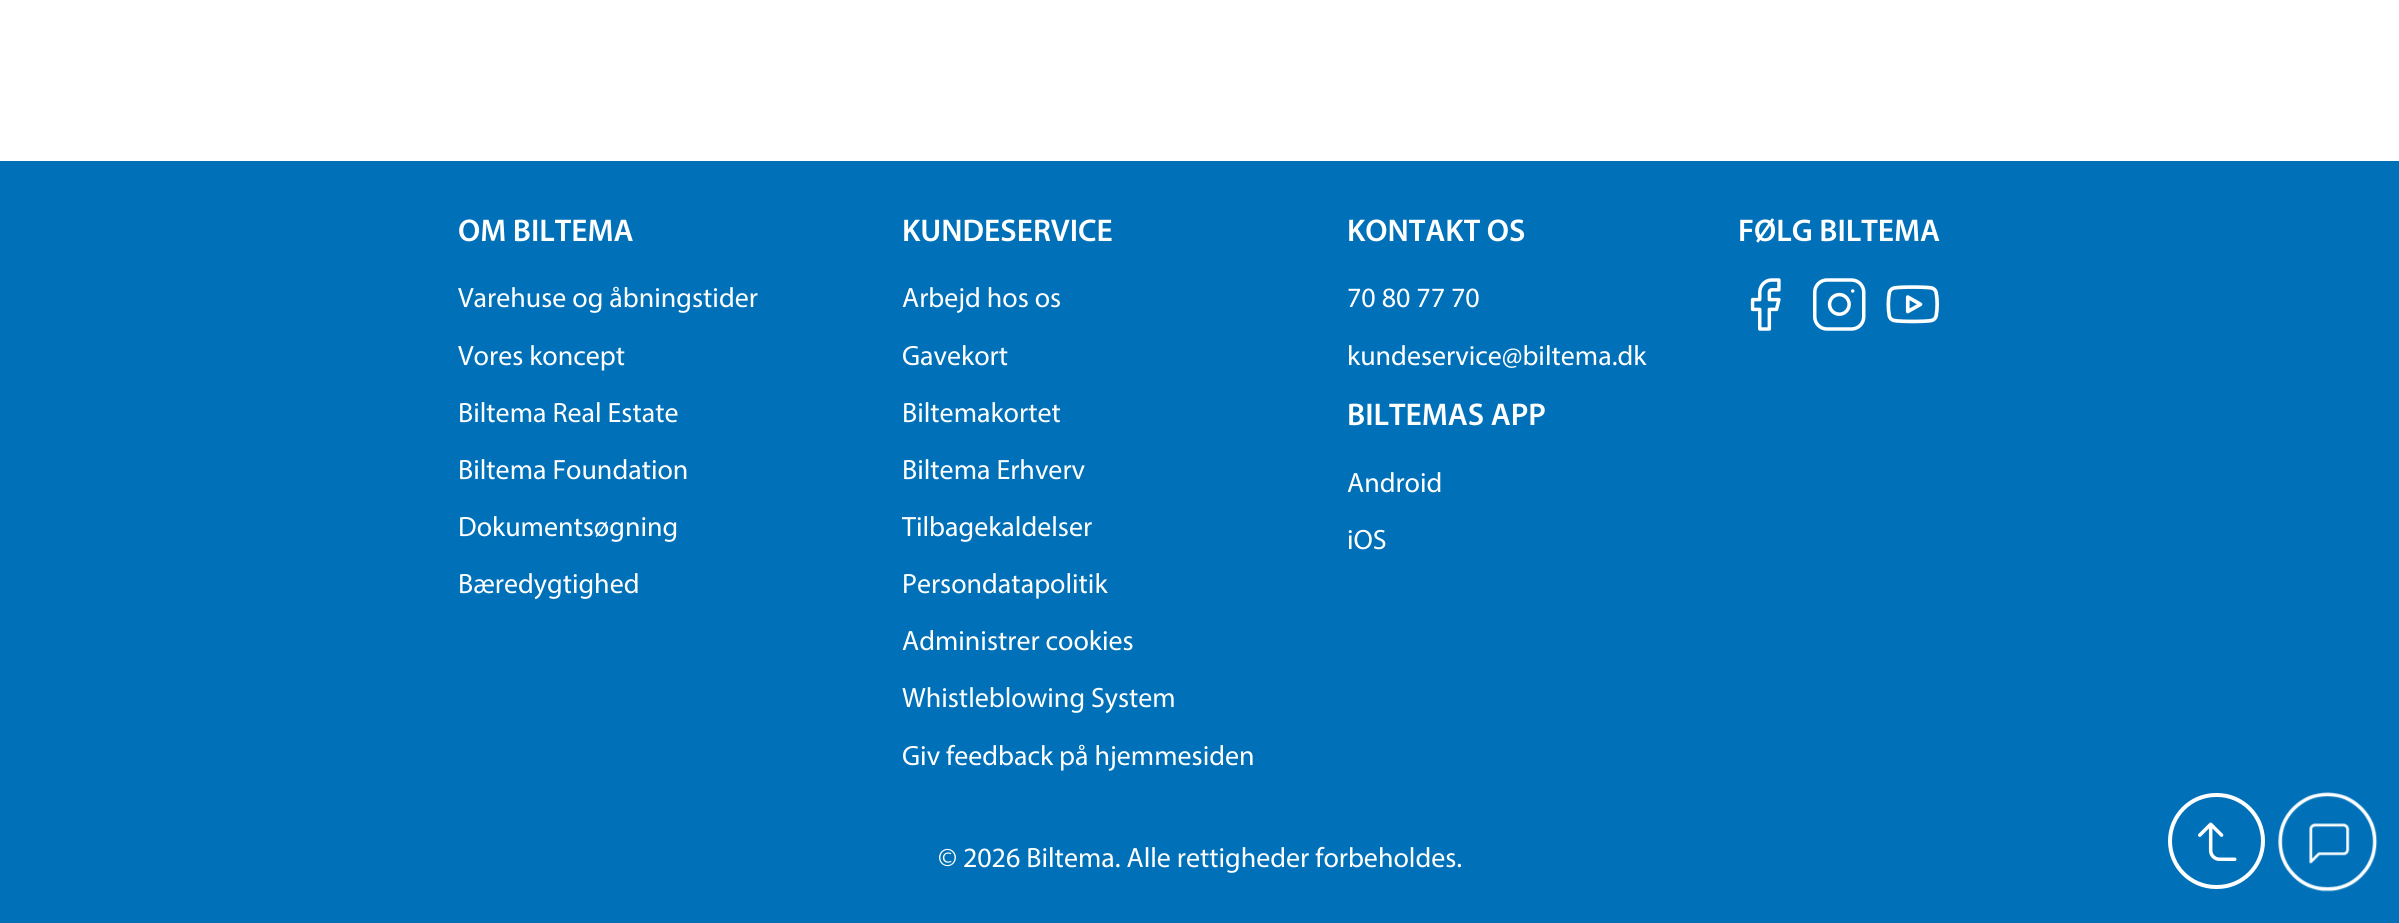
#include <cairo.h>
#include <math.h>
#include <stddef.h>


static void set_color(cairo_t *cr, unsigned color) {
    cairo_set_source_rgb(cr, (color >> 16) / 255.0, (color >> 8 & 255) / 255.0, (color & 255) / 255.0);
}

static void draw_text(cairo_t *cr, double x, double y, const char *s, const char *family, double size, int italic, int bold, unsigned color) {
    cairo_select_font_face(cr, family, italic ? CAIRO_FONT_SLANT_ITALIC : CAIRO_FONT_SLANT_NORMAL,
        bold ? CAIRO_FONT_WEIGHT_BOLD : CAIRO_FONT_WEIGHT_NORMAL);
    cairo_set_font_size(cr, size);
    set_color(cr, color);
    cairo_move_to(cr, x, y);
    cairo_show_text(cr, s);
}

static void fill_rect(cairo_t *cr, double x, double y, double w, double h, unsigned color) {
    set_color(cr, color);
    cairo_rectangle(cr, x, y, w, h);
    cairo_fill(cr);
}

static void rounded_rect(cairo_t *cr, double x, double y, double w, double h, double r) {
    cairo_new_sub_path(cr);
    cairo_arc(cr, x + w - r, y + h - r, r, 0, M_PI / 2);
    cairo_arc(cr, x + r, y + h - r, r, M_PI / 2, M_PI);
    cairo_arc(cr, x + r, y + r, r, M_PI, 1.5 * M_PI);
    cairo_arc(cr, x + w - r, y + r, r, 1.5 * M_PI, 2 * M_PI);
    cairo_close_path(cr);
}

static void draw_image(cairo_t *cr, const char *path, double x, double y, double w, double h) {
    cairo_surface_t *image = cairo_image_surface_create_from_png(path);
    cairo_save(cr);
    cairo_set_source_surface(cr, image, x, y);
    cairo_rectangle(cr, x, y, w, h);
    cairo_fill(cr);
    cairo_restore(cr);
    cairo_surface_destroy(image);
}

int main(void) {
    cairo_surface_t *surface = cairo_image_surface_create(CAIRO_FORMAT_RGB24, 2399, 923);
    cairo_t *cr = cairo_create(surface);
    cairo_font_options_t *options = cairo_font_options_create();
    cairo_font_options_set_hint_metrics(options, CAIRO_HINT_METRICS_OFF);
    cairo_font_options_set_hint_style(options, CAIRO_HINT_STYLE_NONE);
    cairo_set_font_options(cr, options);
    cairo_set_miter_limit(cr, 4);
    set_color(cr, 0xFFFFFF);
    cairo_paint(cr);
    fill_rect(cr, 0, 161, 2399, 762, 0x0071B9);
    draw_text(cr, 458, 241, "OM BILTEMA", "Myriad SemiBold", 31.5, 0, 0, 0xFFFFFF);
    draw_text(cr, 458, 307, "Varehuse og åbningstider", "Myriad", 28, 0, 0, 0xFFFFFF);
    draw_text(cr, 458, 365, "Vores koncept", "Myriad", 28, 0, 0, 0xFFFFFF);
    draw_text(cr, 458, 422, "Biltema Real Estate", "Myriad", 28, 0, 0, 0xFFFFFF);
    draw_text(cr, 458, 479, "Biltema Foundation", "Myriad", 28, 0, 0, 0xFFFFFF);
    draw_text(cr, 458, 536, "Dokumentsøgning", "Myriad", 28, 0, 0, 0xFFFFFF);
    draw_text(cr, 458, 593, "Bæredygtighed", "Myriad", 28, 0, 0, 0xFFFFFF);
    draw_text(cr, 902, 241, "KUNDESERVICE", "Myriad SemiBold", 31.5, 0, 0, 0xFFFFFF);
    draw_text(cr, 902, 307, "Arbejd hos os", "Myriad", 28, 0, 0, 0xFFFFFF);
    draw_text(cr, 902, 365, "Gavekort", "Myriad", 28, 0, 0, 0xFFFFFF);
    draw_text(cr, 902, 422, "Biltemakortet", "Myriad", 28, 0, 0, 0xFFFFFF);
    draw_text(cr, 902, 479, "Biltema Erhverv", "Myriad", 28, 0, 0, 0xFFFFFF);
    draw_text(cr, 902, 536, "Tilbagekaldelser", "Myriad", 28, 0, 0, 0xFFFFFF);
    draw_text(cr, 902, 593, "Persondatapolitik", "Myriad", 28, 0, 0, 0xFFFFFF);
    draw_text(cr, 902, 650, "Administrer cookies", "Myriad", 28, 0, 0, 0xFFFFFF);
    draw_text(cr, 902, 707, "Whistleblowing System", "Myriad", 28, 0, 0, 0xFFFFFF);
    draw_text(cr, 902, 765, "Giv feedback på hjemmesiden", "Myriad", 28, 0, 0, 0xFFFFFF);
    draw_text(cr, 1347, 241, "KONTAKT OS", "Myriad SemiBold", 31.5, 0, 0, 0xFFFFFF);
    draw_text(cr, 1347, 307, "70 80 77 70", "Myriad", 28, 0, 0, 0xFFFFFF);
    draw_text(cr, 1347, 365, "kundeservice@biltema.dk", "Myriad", 28, 0, 0, 0xFFFFFF);
    draw_text(cr, 1347, 425, "BILTEMAS APP", "Myriad SemiBold", 31.5, 0, 0, 0xFFFFFF);
    draw_text(cr, 1347, 492, "Android", "Myriad", 28, 0, 0, 0xFFFFFF);
    draw_text(cr, 1347, 549, "iOS", "Myriad", 28, 0, 0, 0xFFFFFF);
    draw_text(cr, 1738, 241, "FØLG BILTEMA", "Myriad SemiBold", 31.5, 0, 0, 0xFFFFFF);
    draw_image(cr, "assets/img1.png", 1750, 278, 31, 53);
    draw_image(cr, "assets/img2.png", 1813, 278, 53, 53);
    draw_image(cr, "assets/img3.png", 1886, 285, 53, 39);
    draw_text(cr, 938, 867, "© 2026 Biltema. Alle rettigheder forbeholdes.", "Myriad", 28, 0, 0, 0xFFFFFF);
    rounded_rect(cr, 2170, 795, 93, 92, 46);
    cairo_set_line_width(cr, 4);
    cairo_stroke(cr);
    draw_image(cr, "assets/img4.png", 2198, 822, 39, 39);
    draw_image(cr, "assets/img5.png", 2278, 792, 100, 100);
    cairo_surface_write_to_png(surface, "output.png");
    cairo_font_options_destroy(options);
    cairo_destroy(cr);
    cairo_surface_destroy(surface);
    return 0;
}
